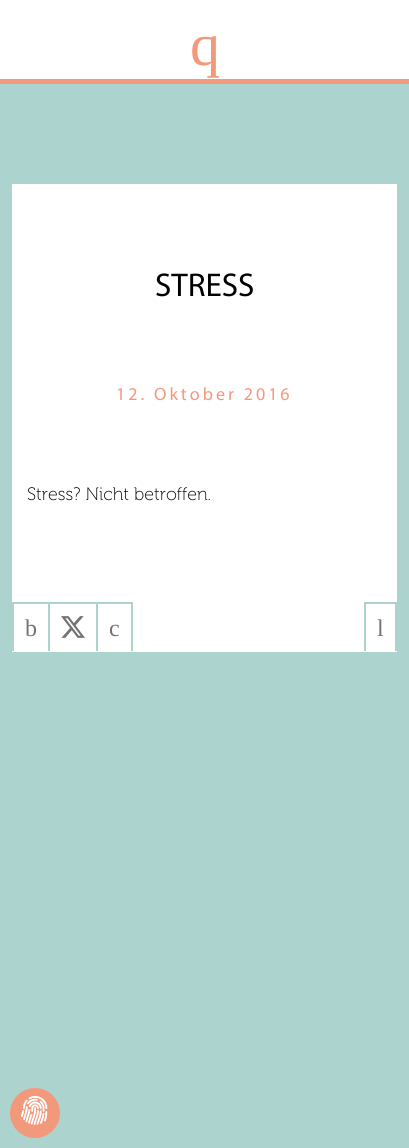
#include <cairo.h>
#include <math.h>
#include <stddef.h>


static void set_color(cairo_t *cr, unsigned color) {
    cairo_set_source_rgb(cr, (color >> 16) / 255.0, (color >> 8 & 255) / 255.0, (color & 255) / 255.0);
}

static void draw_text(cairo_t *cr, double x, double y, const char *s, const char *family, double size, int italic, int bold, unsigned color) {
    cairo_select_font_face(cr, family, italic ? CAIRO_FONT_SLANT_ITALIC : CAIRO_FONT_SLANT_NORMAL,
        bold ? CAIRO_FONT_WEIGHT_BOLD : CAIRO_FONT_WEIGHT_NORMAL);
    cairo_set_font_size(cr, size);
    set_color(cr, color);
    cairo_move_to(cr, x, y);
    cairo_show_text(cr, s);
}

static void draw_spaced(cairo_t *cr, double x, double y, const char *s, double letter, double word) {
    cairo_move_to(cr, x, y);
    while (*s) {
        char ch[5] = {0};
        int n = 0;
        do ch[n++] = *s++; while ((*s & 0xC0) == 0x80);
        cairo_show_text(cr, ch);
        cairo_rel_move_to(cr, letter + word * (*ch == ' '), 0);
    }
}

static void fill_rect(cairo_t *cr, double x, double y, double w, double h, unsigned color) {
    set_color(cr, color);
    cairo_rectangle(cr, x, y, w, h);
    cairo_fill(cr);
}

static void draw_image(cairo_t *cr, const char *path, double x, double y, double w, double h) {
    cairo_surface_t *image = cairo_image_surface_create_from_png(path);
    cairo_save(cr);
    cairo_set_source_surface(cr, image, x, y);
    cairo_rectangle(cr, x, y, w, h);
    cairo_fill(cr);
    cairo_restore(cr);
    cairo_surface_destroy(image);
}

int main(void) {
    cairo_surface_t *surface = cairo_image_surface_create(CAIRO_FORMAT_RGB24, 409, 1148);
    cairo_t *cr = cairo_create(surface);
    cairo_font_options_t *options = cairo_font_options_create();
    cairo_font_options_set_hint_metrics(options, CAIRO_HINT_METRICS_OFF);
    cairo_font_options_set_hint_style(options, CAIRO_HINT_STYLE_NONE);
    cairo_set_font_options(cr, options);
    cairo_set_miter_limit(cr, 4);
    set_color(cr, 0xADD3CE);
    cairo_paint(cr);
    fill_rect(cr, 0, 79, 409, 5, 0xF09B7E);
    fill_rect(cr, 0, 0, 409, 79, 0xFFFFFF);
    draw_text(cr, 190, 65, "q", "Liberation Serif", 60, 0, 0, 0xF3997B);
    fill_rect(cr, 12, 184, 385, 468, 0xFFFFFF);
    draw_text(cr, 155, 296, "STRESS", "Myriad", 33, 0, 0, 0x000000);
    cairo_set_font_size(cr, 18);
    set_color(cr, 0xF3997B);
    draw_spaced(cr, 116, 400, "12. Oktober 2016", 3, 0);
    draw_text(cr, 27, 500, "Stress? Nicht betroffen.", "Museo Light", 18, 0, 0, 0x000000);
    fill_rect(cr, 12, 602, 121, 2, 0xADD3CE);
    fill_rect(cr, 48, 602, 2, 49, 0xADD3CE);
    fill_rect(cr, 12, 602, 2, 49, 0xADD3CE);
    draw_text(cr, 25, 636, "b", "Liberation Serif", 24, 0, 0, 0x737373);
    draw_image(cr, "assets/img1.png", 61, 616, 24, 22);
    fill_rect(cr, 131, 602, 2, 49, 0xADD3CE);
    fill_rect(cr, 96, 602, 2, 49, 0xADD3CE);
    draw_text(cr, 109, 636, "c", "Liberation Serif", 24, 0, 0, 0x737373);
    fill_rect(cr, 364, 602, 33, 2, 0xADD3CE);
    fill_rect(cr, 395, 602, 2, 49, 0xADD3CE);
    fill_rect(cr, 364, 602, 2, 49, 0xADD3CE);
    draw_text(cr, 377, 636, "l", "Liberation Serif", 24, 0, 0, 0x737373);
    set_color(cr, 0xF3997B);
    cairo_new_path(cr);
    cairo_arc(cr, 35, 1113, 25, 0, 2 * M_PI);
    cairo_fill(cr);
    draw_image(cr, "assets/img2.png", 21, 1095, 27, 30);
    cairo_surface_write_to_png(surface, "output.png");
    cairo_font_options_destroy(options);
    cairo_destroy(cr);
    cairo_surface_destroy(surface);
    return 0;
}
